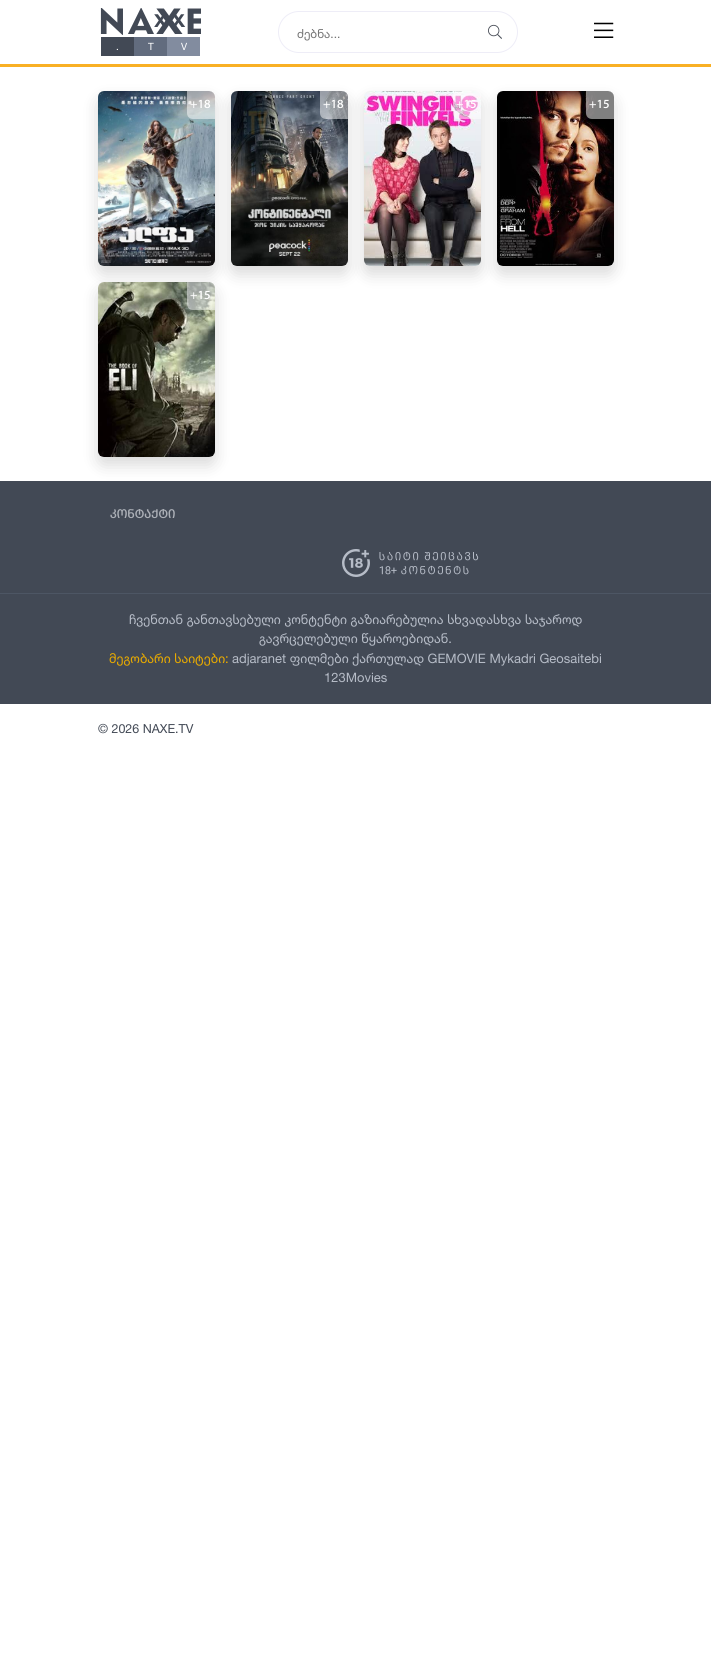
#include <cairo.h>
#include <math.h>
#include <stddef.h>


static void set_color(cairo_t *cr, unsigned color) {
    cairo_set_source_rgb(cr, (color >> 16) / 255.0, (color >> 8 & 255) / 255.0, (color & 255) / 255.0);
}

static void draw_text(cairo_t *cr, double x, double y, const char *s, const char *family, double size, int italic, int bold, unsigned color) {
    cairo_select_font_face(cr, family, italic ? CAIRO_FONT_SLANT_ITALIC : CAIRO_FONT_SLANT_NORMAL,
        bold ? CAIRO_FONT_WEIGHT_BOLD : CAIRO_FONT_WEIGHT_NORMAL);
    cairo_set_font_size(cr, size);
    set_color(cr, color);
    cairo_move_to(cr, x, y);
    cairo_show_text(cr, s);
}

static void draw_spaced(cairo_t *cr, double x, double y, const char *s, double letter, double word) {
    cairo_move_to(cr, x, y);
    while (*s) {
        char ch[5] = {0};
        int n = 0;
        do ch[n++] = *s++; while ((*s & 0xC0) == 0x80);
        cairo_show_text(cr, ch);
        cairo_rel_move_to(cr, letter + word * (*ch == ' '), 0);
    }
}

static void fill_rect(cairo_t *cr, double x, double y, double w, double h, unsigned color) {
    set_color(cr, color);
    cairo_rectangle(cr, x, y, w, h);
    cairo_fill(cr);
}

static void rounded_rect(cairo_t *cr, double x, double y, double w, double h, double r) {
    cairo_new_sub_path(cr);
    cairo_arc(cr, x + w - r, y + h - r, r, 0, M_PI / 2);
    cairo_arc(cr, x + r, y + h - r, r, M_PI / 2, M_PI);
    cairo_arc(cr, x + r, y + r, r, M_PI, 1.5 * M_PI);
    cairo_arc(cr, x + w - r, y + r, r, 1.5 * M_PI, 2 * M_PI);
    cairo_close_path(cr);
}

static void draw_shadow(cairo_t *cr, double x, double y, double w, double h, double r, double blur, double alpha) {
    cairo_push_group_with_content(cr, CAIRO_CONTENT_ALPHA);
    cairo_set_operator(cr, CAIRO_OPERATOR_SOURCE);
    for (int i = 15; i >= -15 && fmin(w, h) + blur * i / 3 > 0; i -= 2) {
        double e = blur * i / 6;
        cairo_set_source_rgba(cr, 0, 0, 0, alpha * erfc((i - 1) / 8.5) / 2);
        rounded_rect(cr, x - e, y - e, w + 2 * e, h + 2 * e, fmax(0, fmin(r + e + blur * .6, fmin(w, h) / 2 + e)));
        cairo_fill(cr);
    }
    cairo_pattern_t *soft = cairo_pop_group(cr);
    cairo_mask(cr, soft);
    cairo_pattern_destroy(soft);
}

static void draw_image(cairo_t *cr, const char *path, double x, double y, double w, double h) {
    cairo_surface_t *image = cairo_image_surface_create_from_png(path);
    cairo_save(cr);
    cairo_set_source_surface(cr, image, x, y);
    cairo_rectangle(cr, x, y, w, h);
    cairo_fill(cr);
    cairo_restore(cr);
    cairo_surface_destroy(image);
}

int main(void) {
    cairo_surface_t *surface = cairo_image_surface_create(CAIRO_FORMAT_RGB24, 711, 1663);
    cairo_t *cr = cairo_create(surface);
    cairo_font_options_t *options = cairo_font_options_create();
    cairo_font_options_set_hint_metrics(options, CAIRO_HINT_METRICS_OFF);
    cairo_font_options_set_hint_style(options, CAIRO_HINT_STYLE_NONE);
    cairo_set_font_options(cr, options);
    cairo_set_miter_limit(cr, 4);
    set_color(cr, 0xFFFFFF);
    cairo_paint(cr);
    fill_rect(cr, 0, 64, 711, 3, 0xF9B024);
    cairo_select_font_face(cr, "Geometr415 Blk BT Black", CAIRO_FONT_SLANT_NORMAL, CAIRO_FONT_WEIGHT_NORMAL);
    cairo_set_font_size(cr, 18);
    set_color(cr, 0x424955);
    draw_spaced(cr, 154, 27, "X", 3, 0);
    draw_spaced(cr, 172, 27, "X", 3, 0);
    cairo_save(cr);
    cairo_rectangle(cr, 98, 8, 103, 48);
    cairo_clip(cr);
    cairo_set_font_size(cr, 36);
    draw_spaced(cr, 98, 34, "NAXE", 3, 0);
    cairo_restore(cr);
    fill_rect(cr, 101, 37, 33, 19, 0x424955);
    draw_text(cr, 116, 50, ".", "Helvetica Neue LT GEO", 10, 0, 0, 0xFFFFFF);
    fill_rect(cr, 134, 37, 33, 19, 0x626C7E);
    draw_text(cr, 148, 50, "T", "Helvetica Neue LT GEO", 10, 0, 0, 0xFFFFFF);
    fill_rect(cr, 167, 37, 33, 19, 0x828C9F);
    draw_text(cr, 181, 50, "V", "Helvetica Neue LT GEO", 10, 0, 0, 0xFFFFFF);
    rounded_rect(cr, 278.5, 11.5, 239, 41, 20.5);
    set_color(cr, 0xEEEDF7);
    cairo_set_line_width(cr, 1);
    cairo_stroke(cr);
    draw_text(cr, 297, 38, "ძებნა...", "Helvetica Neue LT GEO", 12, 0, 0, 0x757575);
    draw_image(cr, "assets/img1.png", 488, 24, 14, 15);
    draw_image(cr, "assets/img2.png", 594, 22, 20, 16);
    set_color(cr, 0x000000);
    draw_shadow(cr, 98, 99, 117, 175, 6, 8, 0.15);
    draw_image(cr, "assets/img3.png", 98, 91, 117, 175);
    draw_shadow(cr, 231, 99, 117, 175, 6, 8, 0.15);
    cairo_set_source_rgba(cr, 1, 1, 1, 0.5);
    cairo_new_path(cr);
    cairo_move_to(cr, 187, 91);
    cairo_line_to(cr, 211, 91);
    cairo_curve_to(cr, 213, 91, 215, 93, 215, 95);
    cairo_line_to(cr, 215, 119);
    cairo_line_to(cr, 193, 119);
    cairo_curve_to(cr, 189.5, 119, 187, 116.5, 187, 113);
    cairo_close_path(cr);
    cairo_fill(cr);
    draw_text(cr, 190, 108, "+18", "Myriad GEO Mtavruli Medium", 12.5, 0, 0, 0xFFFFFF);
    draw_image(cr, "assets/img4.png", 231, 91, 117, 175);
    set_color(cr, 0x000000);
    draw_shadow(cr, 364, 99, 117, 175, 6, 8, 0.15);
    cairo_set_source_rgba(cr, 1, 1, 1, 0.5);
    cairo_new_path(cr);
    cairo_move_to(cr, 320, 91);
    cairo_line_to(cr, 344, 91);
    cairo_curve_to(cr, 346, 91, 348, 93, 348, 95);
    cairo_line_to(cr, 348, 119);
    cairo_line_to(cr, 326, 119);
    cairo_curve_to(cr, 322.5, 119, 320, 116.5, 320, 113);
    cairo_close_path(cr);
    cairo_fill(cr);
    draw_text(cr, 323, 108, "+18", "Myriad GEO Mtavruli Medium", 12.5, 0, 0, 0xFFFFFF);
    draw_image(cr, "assets/img5.png", 364, 91, 117, 175);
    set_color(cr, 0x000000);
    draw_shadow(cr, 497, 99, 117, 175, 6, 8, 0.15);
    cairo_set_source_rgba(cr, 1, 1, 1, 0.5);
    cairo_new_path(cr);
    cairo_move_to(cr, 453, 91);
    cairo_line_to(cr, 477, 91);
    cairo_curve_to(cr, 479, 91, 481, 93, 481, 95);
    cairo_line_to(cr, 481, 119);
    cairo_line_to(cr, 459, 119);
    cairo_curve_to(cr, 455.5, 119, 453, 116.5, 453, 113);
    cairo_close_path(cr);
    cairo_fill(cr);
    draw_text(cr, 456, 108, "+15", "Myriad GEO Mtavruli Medium", 12.5, 0, 0, 0xFFFFFF);
    draw_image(cr, "assets/img6.png", 497, 91, 117, 175);
    cairo_set_source_rgba(cr, 1, 1, 1, 0.5);
    cairo_new_path(cr);
    cairo_move_to(cr, 586, 91);
    cairo_line_to(cr, 610, 91);
    cairo_curve_to(cr, 612, 91, 614, 93, 614, 95);
    cairo_line_to(cr, 614, 119);
    cairo_line_to(cr, 592, 119);
    cairo_curve_to(cr, 588.5, 119, 586, 116.5, 586, 113);
    cairo_close_path(cr);
    cairo_fill(cr);
    draw_text(cr, 589, 108, "+15", "Myriad GEO Mtavruli Medium", 12.5, 0, 0, 0xFFFFFF);
    fill_rect(cr, 0, 481, 711, 112, 0x424955);
    set_color(cr, 0x000000);
    draw_shadow(cr, 98, 290, 117, 175, 6, 8, 0.15);
    draw_image(cr, "assets/img7.png", 98, 282, 117, 175);
    cairo_set_source_rgba(cr, 1, 1, 1, 0.5);
    cairo_new_path(cr);
    cairo_move_to(cr, 187, 282);
    cairo_line_to(cr, 211, 282);
    cairo_curve_to(cr, 213, 282, 215, 284, 215, 286);
    cairo_line_to(cr, 215, 310);
    cairo_line_to(cr, 193, 310);
    cairo_curve_to(cr, 189.5, 310, 187, 307.5, 187, 304);
    cairo_close_path(cr);
    cairo_fill(cr);
    draw_text(cr, 190, 299, "+15", "Myriad GEO Mtavruli Medium", 12.5, 0, 0, 0xFFFFFF);
    fill_rect(cr, 0, 593, 711, 1, 0x4D5664);
    draw_text(cr, 110, 518, "კონტაქტი", "Myriad GEO Mtavruli Medium", 13, 0, 0, 0xACB0B7);
    draw_image(cr, "assets/img8.png", 342, 549, 137, 28);
    fill_rect(cr, 0, 594, 711, 110, 0x424955);
    draw_text(cr, 129, 624, "ჩვენთან განთავსებული კონტენტი გაზიარებულია სხვადასხვა საჯაროდ", "Helvetica Neue LT GEO", 13, 0, 0, 0xB6BCC7);
    draw_text(cr, 259, 643, "გავრცელებული წყაროებიდან.", "Helvetica Neue LT GEO", 13, 0, 0, 0xB6BCC7);
    draw_text(cr, 109, 663, "მეგობარი საიტები:", "Helvetica Neue LT GEO", 13, 0, 0, 0xE8AA00);
    draw_text(cr, 232, 663, "adjaranet ფილმები ქართულად GEMOVIE Mykadri Geosaitebi", "Helvetica Neue LT GEO", 13, 0, 0, 0xB6BCC7);
    draw_text(cr, 324, 682, "123Movies", "Helvetica Neue LT GEO", 13, 0, 0, 0xB6BCC7);
    draw_text(cr, 98, 733, "© 2026 NAXE.TV", "Helvetica Neue LT GEO", 12.5, 0, 0, 0x424955);
    cairo_surface_write_to_png(surface, "output.png");
    cairo_font_options_destroy(options);
    cairo_destroy(cr);
    cairo_surface_destroy(surface);
    return 0;
}
